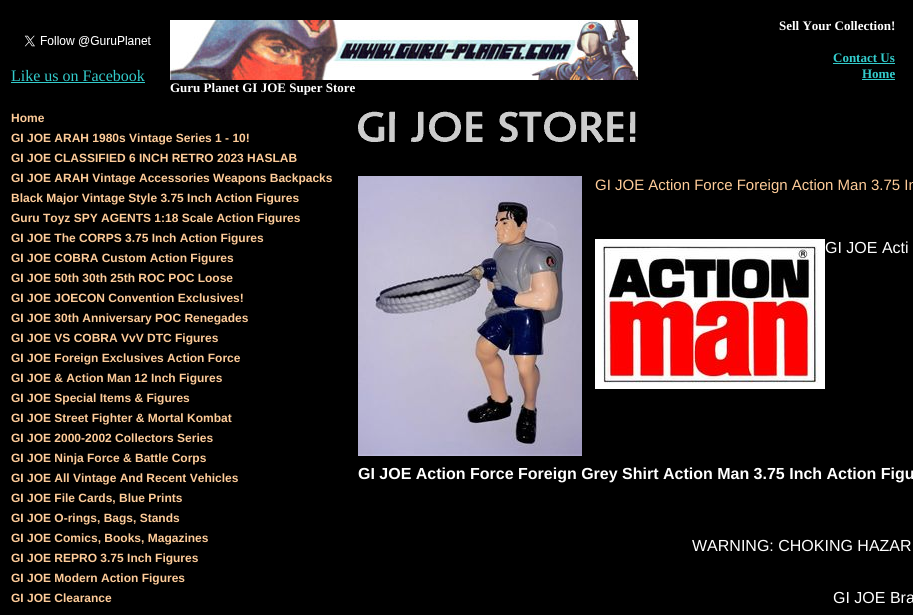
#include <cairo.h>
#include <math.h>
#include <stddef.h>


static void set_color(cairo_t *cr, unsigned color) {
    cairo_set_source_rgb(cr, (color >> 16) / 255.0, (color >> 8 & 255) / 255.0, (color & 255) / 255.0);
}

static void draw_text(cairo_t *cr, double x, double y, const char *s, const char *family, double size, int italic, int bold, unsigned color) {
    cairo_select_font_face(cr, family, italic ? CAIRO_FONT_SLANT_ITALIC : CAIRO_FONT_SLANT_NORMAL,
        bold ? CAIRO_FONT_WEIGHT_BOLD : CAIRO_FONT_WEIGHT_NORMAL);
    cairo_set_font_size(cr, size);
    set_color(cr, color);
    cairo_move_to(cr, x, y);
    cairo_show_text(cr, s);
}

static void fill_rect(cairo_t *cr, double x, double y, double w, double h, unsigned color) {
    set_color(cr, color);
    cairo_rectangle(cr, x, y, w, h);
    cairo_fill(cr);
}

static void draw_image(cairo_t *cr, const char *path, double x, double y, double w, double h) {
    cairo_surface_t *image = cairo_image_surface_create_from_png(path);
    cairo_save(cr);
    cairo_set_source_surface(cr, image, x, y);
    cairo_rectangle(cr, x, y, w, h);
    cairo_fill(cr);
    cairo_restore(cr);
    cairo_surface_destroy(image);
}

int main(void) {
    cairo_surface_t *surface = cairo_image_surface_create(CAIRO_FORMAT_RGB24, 913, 615);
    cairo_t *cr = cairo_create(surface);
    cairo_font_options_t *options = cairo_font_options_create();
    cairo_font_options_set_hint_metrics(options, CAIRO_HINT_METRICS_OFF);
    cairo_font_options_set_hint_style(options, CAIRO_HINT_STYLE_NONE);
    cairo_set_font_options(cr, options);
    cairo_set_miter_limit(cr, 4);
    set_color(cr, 0x000000);
    cairo_paint(cr);
    draw_image(cr, "assets/img1.png", 24, 35, 127, 12);
    draw_text(cr, 11, 81, "Like us on Facebook", "Liberation Serif", 16, 0, 0, 0x33CCCC);
    fill_rect(cr, 11, 82, 134, 1, 0x33CCCC);
    draw_text(cr, 779, 30, "Sell Your Collection!", "Liberation Serif", 13, 0, 1, 0xFFFFFF);
    draw_text(cr, 833, 62, "Contact Us", "Liberation Serif", 13, 0, 1, 0x33CCCC);
    fill_rect(cr, 833, 63, 62, 1, 0x33CCCC);
    draw_text(cr, 862, 78, "Home", "Liberation Serif", 13, 0, 1, 0x33CCCC);
    fill_rect(cr, 862, 79, 33, 1, 0x33CCCC);
    draw_image(cr, "assets/img2.png", 170, 20, 468, 60);
    draw_text(cr, 170, 92, "Guru Planet GI JOE Super Store", "Liberation Serif", 13, 0, 1, 0xFFFFFF);
    draw_text(cr, 11, 122, "Home", "Liberation Sans", 12, 0, 1, 0xFFCC99);
    draw_text(cr, 11, 142, "GI JOE ARAH 1980s Vintage Series 1 - 10!", "Liberation Sans", 12, 0, 1, 0xFFCC99);
    draw_text(cr, 11, 162, "GI JOE CLASSIFIED 6 INCH RETRO 2023 HASLAB", "Liberation Sans", 12, 0, 1, 0xFFCC99);
    draw_text(cr, 11, 182, "GI JOE ARAH Vintage Accessories Weapons Backpacks", "Liberation Sans", 12, 0, 1, 0xFFCC99);
    draw_text(cr, 11, 202, "Black Major Vintage Style 3.75 Inch Action Figures", "Liberation Sans", 12, 0, 1, 0xFFCC99);
    draw_text(cr, 11, 222, "Guru Toyz SPY AGENTS 1:18 Scale Action Figures", "Liberation Sans", 12, 0, 1, 0xFFCC99);
    draw_text(cr, 11, 242, "GI JOE The CORPS 3.75 Inch Action Figures", "Liberation Sans", 12, 0, 1, 0xFFCC99);
    draw_text(cr, 11, 262, "GI JOE COBRA Custom Action Figures", "Liberation Sans", 12, 0, 1, 0xFFCC99);
    draw_text(cr, 11, 282, "GI JOE 50th 30th 25th ROC POC Loose", "Liberation Sans", 12, 0, 1, 0xFFCC99);
    draw_text(cr, 11, 302, "GI JOE JOECON Convention Exclusives!", "Liberation Sans", 12, 0, 1, 0xFFCC99);
    draw_text(cr, 11, 322, "GI JOE 30th Anniversary POC Renegades", "Liberation Sans", 12, 0, 1, 0xFFCC99);
    draw_text(cr, 11, 342, "GI JOE VS COBRA VvV DTC Figures", "Liberation Sans", 12, 0, 1, 0xFFCC99);
    draw_text(cr, 11, 362, "GI JOE Foreign Exclusives Action Force", "Liberation Sans", 12, 0, 1, 0xFFCC99);
    draw_text(cr, 11, 382, "GI JOE & Action Man 12 Inch Figures", "Liberation Sans", 12, 0, 1, 0xFFCC99);
    draw_text(cr, 11, 402, "GI JOE Special Items & Figures", "Liberation Sans", 12, 0, 1, 0xFFCC99);
    draw_text(cr, 11, 422, "GI JOE Street Fighter & Mortal Kombat", "Liberation Sans", 12, 0, 1, 0xFFCC99);
    draw_text(cr, 11, 442, "GI JOE 2000-2002 Collectors Series", "Liberation Sans", 12, 0, 1, 0xFFCC99);
    draw_text(cr, 11, 462, "GI JOE Ninja Force & Battle Corps", "Liberation Sans", 12, 0, 1, 0xFFCC99);
    draw_text(cr, 11, 482, "GI JOE All Vintage And Recent Vehicles", "Liberation Sans", 12, 0, 1, 0xFFCC99);
    draw_text(cr, 11, 502, "GI JOE File Cards, Blue Prints", "Liberation Sans", 12, 0, 1, 0xFFCC99);
    draw_text(cr, 11, 522, "GI JOE O-rings, Bags, Stands", "Liberation Sans", 12, 0, 1, 0xFFCC99);
    draw_text(cr, 11, 542, "GI JOE Comics, Books, Magazines", "Liberation Sans", 12, 0, 1, 0xFFCC99);
    draw_text(cr, 11, 562, "GI JOE REPRO 3.75 Inch Figures", "Liberation Sans", 12, 0, 1, 0xFFCC99);
    draw_text(cr, 11, 582, "GI JOE Modern Action Figures", "Liberation Sans", 12, 0, 1, 0xFFCC99);
    draw_text(cr, 11, 602, "GI JOE Clearance", "Liberation Sans", 12, 0, 1, 0xFFCC99);
    draw_image(cr, "assets/img3.png", 358, 111, 278, 32);
    draw_image(cr, "assets/img4.png", 358, 176, 224, 280);
    draw_text(cr, 595, 190, "GI JOE Action Force Foreign Action Man 3.75 In", "Liberation Sans", 15, 0, 0, 0xFFCC99);
    draw_image(cr, "assets/img5.png", 595, 239, 230, 150);
    draw_text(cr, 825, 253, "GI JOE Acti", "Liberation Sans", 16, 0, 0, 0xFFFFFF);
    draw_text(cr, 358, 479, "GI JOE Action Force Foreign Grey Shirt Action Man 3.75 Inch Action Figu", "Liberation Sans", 16, 0, 1, 0xFFFFFF);
    draw_text(cr, 692, 551, "WARNING: CHOKING HAZAR", "Liberation Sans", 16, 0, 0, 0xFFFFFF);
    draw_text(cr, 833, 603, "GI JOE Bra", "Liberation Sans", 16, 0, 0, 0xFFFFFF);
    cairo_surface_write_to_png(surface, "output.png");
    cairo_font_options_destroy(options);
    cairo_destroy(cr);
    cairo_surface_destroy(surface);
    return 0;
}
